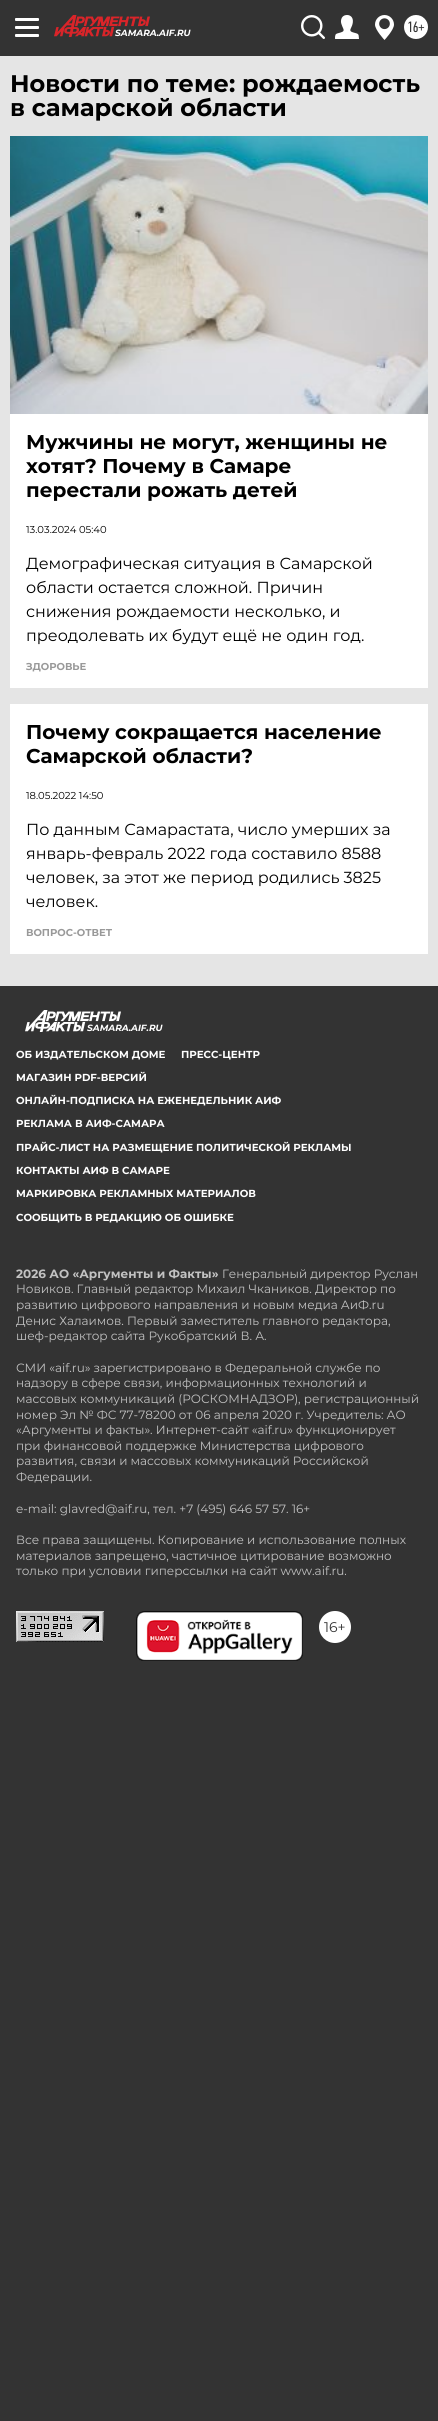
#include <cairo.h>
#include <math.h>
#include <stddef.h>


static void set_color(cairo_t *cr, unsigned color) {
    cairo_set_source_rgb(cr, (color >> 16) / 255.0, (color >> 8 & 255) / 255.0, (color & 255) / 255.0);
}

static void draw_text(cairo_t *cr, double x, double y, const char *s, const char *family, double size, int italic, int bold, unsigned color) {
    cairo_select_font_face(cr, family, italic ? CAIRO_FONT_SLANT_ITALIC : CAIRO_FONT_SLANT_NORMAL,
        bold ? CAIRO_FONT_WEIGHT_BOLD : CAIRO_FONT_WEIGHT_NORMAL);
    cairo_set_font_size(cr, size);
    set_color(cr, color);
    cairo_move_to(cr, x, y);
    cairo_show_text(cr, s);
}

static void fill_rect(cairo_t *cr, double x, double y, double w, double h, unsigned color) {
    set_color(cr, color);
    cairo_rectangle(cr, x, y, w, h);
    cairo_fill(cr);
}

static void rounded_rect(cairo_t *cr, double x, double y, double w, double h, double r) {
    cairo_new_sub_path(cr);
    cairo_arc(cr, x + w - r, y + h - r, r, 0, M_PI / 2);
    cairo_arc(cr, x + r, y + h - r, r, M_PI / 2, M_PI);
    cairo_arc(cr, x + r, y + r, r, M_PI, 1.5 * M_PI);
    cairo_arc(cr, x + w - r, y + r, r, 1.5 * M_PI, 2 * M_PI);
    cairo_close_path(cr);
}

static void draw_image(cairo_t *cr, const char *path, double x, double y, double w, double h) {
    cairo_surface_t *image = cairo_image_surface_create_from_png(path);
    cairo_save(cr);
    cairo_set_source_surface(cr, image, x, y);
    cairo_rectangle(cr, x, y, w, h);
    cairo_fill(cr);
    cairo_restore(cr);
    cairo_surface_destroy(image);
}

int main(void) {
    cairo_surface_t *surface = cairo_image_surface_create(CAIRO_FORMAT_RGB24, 438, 2421);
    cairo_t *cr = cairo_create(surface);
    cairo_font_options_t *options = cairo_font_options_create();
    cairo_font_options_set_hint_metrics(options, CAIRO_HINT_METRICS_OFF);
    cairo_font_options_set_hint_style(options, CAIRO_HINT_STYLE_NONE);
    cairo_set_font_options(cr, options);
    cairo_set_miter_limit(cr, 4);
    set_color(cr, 0x333333);
    cairo_paint(cr);
    fill_rect(cr, 0, 56, 438, 930, 0xE5E5E5);
    set_color(cr, 0xFFFFFF);
    rounded_rect(cr, 15, 18, 24, 3, 1);
    cairo_fill(cr);
    rounded_rect(cr, 15, 26, 24, 3, 1);
    cairo_fill(cr);
    rounded_rect(cr, 15, 34, 24, 3, 1);
    cairo_fill(cr);
    draw_image(cr, "assets/img1.png", 54, 15, 96, 22);
    draw_text(cr, 115, 36, "SAMARA.AIF.RU", "Montserrat", 9, 1, 1, 0xFFFFFF);
    draw_image(cr, "assets/img2.png", 301, 15, 24, 24);
    draw_image(cr, "assets/img3.png", 335, 15, 24, 24);
    draw_image(cr, "assets/img4.png", 375, 15, 19, 25);
    cairo_arc(cr, 416, 27, 12, 0, 2 * M_PI);
    cairo_fill(cr);
    draw_text(cr, 407, 32, "16+", "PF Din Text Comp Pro", 15, 0, 0, 0x333333);
    draw_text(cr, 10, 92, "Новости по теме: рождаемость", "Montserrat", 24, 0, 1, 0x000000);
    draw_text(cr, 10, 116, "в самарской области", "Montserrat", 24, 0, 1, 0x000000);
    fill_rect(cr, 10, 414, 418, 274, 0xFFFFFF);
    draw_image(cr, "assets/img5.png", 10, 136, 418, 278);
    draw_text(cr, 26, 449, "Мужчины не могут, женщины не", "Montserrat", 20, 0, 1, 0x000000);
    draw_text(cr, 26, 473, "хотят? Почему в Самаре", "Montserrat", 20, 0, 1, 0x000000);
    draw_text(cr, 26, 497, "перестали рожать детей", "Montserrat", 20, 0, 1, 0x000000);
    draw_text(cr, 26, 533, "13.03.2024 05:40", "Montserrat", 10, 0, 0, 0x000000);
    draw_text(cr, 26, 569, "Демографическая ситуация в Самарской", "Montserrat", 16, 0, 0, 0x000000);
    draw_text(cr, 26, 593, "области остается сложной. Причин", "Montserrat", 16, 0, 0, 0x000000);
    draw_text(cr, 26, 617, "снижения рождаемости несколько, и", "Montserrat", 16, 0, 0, 0x000000);
    draw_text(cr, 26, 641, "преодолевать их будут ещё не один год.", "Montserrat", 16, 0, 0, 0x000000);
    draw_text(cr, 26, 670, "ЗДОРОВЬЕ", "Montserrat", 10, 0, 1, 0x999999);
    fill_rect(cr, 10, 704, 418, 250, 0xFFFFFF);
    draw_text(cr, 26, 739, "Почему сокращается население", "Montserrat", 20, 0, 1, 0x000000);
    draw_text(cr, 26, 763, "Самарской области?", "Montserrat", 20, 0, 1, 0x000000);
    draw_text(cr, 26, 799, "18.05.2022 14:50", "Montserrat", 10, 0, 0, 0x000000);
    draw_text(cr, 26, 835, "По данным Самарастата, число умерших за", "Montserrat", 16, 0, 0, 0x000000);
    draw_text(cr, 26, 859, "январь-февраль 2022 года составило 8588", "Montserrat", 16, 0, 0, 0x000000);
    draw_text(cr, 26, 883, "человек, за этот же период родились 3825", "Montserrat", 16, 0, 0, 0x000000);
    draw_text(cr, 26, 907, "человек.", "Montserrat", 16, 0, 0, 0x000000);
    draw_text(cr, 26, 936, "ВОПРОС-ОТВЕТ", "Montserrat", 10, 0, 1, 0x999999);
    draw_image(cr, "assets/img6.png", 25, 1010, 96, 22);
    draw_text(cr, 87, 1031, "SAMARA.AIF.RU", "Montserrat", 9, 1, 1, 0xFFFFFF);
    draw_text(cr, 16, 1058, "ОБ ИЗДАТЕЛЬСКОМ ДОМЕ", "Montserrat", 10.2, 0, 1, 0xFFFFFF);
    draw_text(cr, 181, 1058, "ПРЕСС-ЦЕНТР", "Montserrat", 10.2, 0, 1, 0xFFFFFF);
    draw_text(cr, 16, 1081, "МАГАЗИН PDF-ВЕРСИЙ", "Montserrat", 10.2, 0, 1, 0xFFFFFF);
    draw_text(cr, 16, 1104, "ОНЛАЙН-ПОДПИСКА НА ЕЖЕНЕДЕЛЬНИК АИФ", "Montserrat", 10.2, 0, 1, 0xFFFFFF);
    draw_text(cr, 16, 1127, "РЕКЛАМА В АИФ-САМАРА", "Montserrat", 10.2, 0, 1, 0xFFFFFF);
    draw_text(cr, 16, 1151, "ПРАЙС-ЛИСТ НА РАЗМЕЩЕНИЕ ПОЛИТИЧЕСКОЙ РЕКЛАМЫ", "Montserrat", 10.2, 0, 1, 0xFFFFFF);
    draw_text(cr, 16, 1174, "КОНТАКТЫ АИФ В САМАРЕ", "Montserrat", 10.2, 0, 1, 0xFFFFFF);
    draw_text(cr, 16, 1197, "МАРКИРОВКА РЕКЛАМНЫХ МАТЕРИАЛОВ", "Montserrat", 10.2, 0, 1, 0xFFFFFF);
    draw_text(cr, 16, 1221, "СООБЩИТЬ В РЕДАКЦИЮ ОБ ОШИБКЕ", "Montserrat", 10.2, 0, 1, 0xFFFFFF);
    draw_text(cr, 16, 1278, "2026 АО «Аргументы и Факты»", "Montserrat", 12, 0, 1, 0xC2C2C2);
    draw_text(cr, 222, 1278, "Генеральный директор Руслан", "Montserrat", 12, 0, 0, 0xC2C2C2);
    draw_text(cr, 16, 1293, "Новиков. Главный редактор Михаил Чкаников. Директор по", "Montserrat", 12, 0, 0, 0xC2C2C2);
    draw_text(cr, 16, 1309, "развитию цифрового направления и новым медиа АиФ.ru", "Montserrat", 12, 0, 0, 0xC2C2C2);
    draw_text(cr, 16, 1325, "Денис Халаимов. Первый заместитель главного редактора,", "Montserrat", 12, 0, 0, 0xC2C2C2);
    draw_text(cr, 16, 1340, "шеф-редактор сайта Рукобратский В. А.", "Montserrat", 12, 0, 0, 0xC2C2C2);
    draw_text(cr, 16, 1372, "СМИ «aif.ru» зарегистрировано в Федеральной службе по", "Montserrat", 12, 0, 0, 0xC2C2C2);
    draw_text(cr, 16, 1387, "надзору в сфере связи, информационных технологий и", "Montserrat", 12, 0, 0, 0xC2C2C2);
    draw_text(cr, 16, 1403, "массовых коммуникаций (РОСКОМНАДЗОР), регистрационный", "Montserrat", 12, 0, 0, 0xC2C2C2);
    draw_text(cr, 16, 1419, "номер Эл № ФС 77-78200 от 06 апреля 2020 г. Учредитель: АО", "Montserrat", 12, 0, 0, 0xC2C2C2);
    draw_text(cr, 16, 1434, "«Аргументы и факты». Интернет-сайт «aif.ru» функционирует", "Montserrat", 12, 0, 0, 0xC2C2C2);
    draw_text(cr, 16, 1450, "при финансовой поддержке Министерства цифрового", "Montserrat", 12, 0, 0, 0xC2C2C2);
    draw_text(cr, 16, 1465, "развития, связи и массовых коммуникаций Российской", "Montserrat", 12, 0, 0, 0xC2C2C2);
    draw_text(cr, 16, 1481, "Федерации.", "Montserrat", 12, 0, 0, 0xC2C2C2);
    draw_text(cr, 16, 1513, "e-mail: glavred@aif.ru, тел. +7 (495) 646 57 57. 16+", "Montserrat", 12, 0, 0, 0xC2C2C2);
    draw_text(cr, 16, 1544, "Все права защищены. Копирование и использование полных", "Montserrat", 12, 0, 0, 0xC2C2C2);
    draw_text(cr, 16, 1560, "материалов запрещено, частичное цитирование возможно", "Montserrat", 12, 0, 0, 0xC2C2C2);
    draw_text(cr, 16, 1575, "только при условии гиперссылки на сайт www.aif.ru.", "Montserrat", 12, 0, 0, 0xC2C2C2);
    draw_image(cr, "assets/img7.png", 16, 1611, 88, 31);
    draw_image(cr, "assets/img8.png", 136, 1611, 167, 50);
    set_color(cr, 0xFFFFFF);
    cairo_arc(cr, 335, 1627, 16, 0, 2 * M_PI);
    cairo_fill(cr);
    draw_text(cr, 324, 1632, "16+", "Montserrat", 14, 0, 0, 0x333333);
    cairo_surface_write_to_png(surface, "output.png");
    cairo_font_options_destroy(options);
    cairo_destroy(cr);
    cairo_surface_destroy(surface);
    return 0;
}
